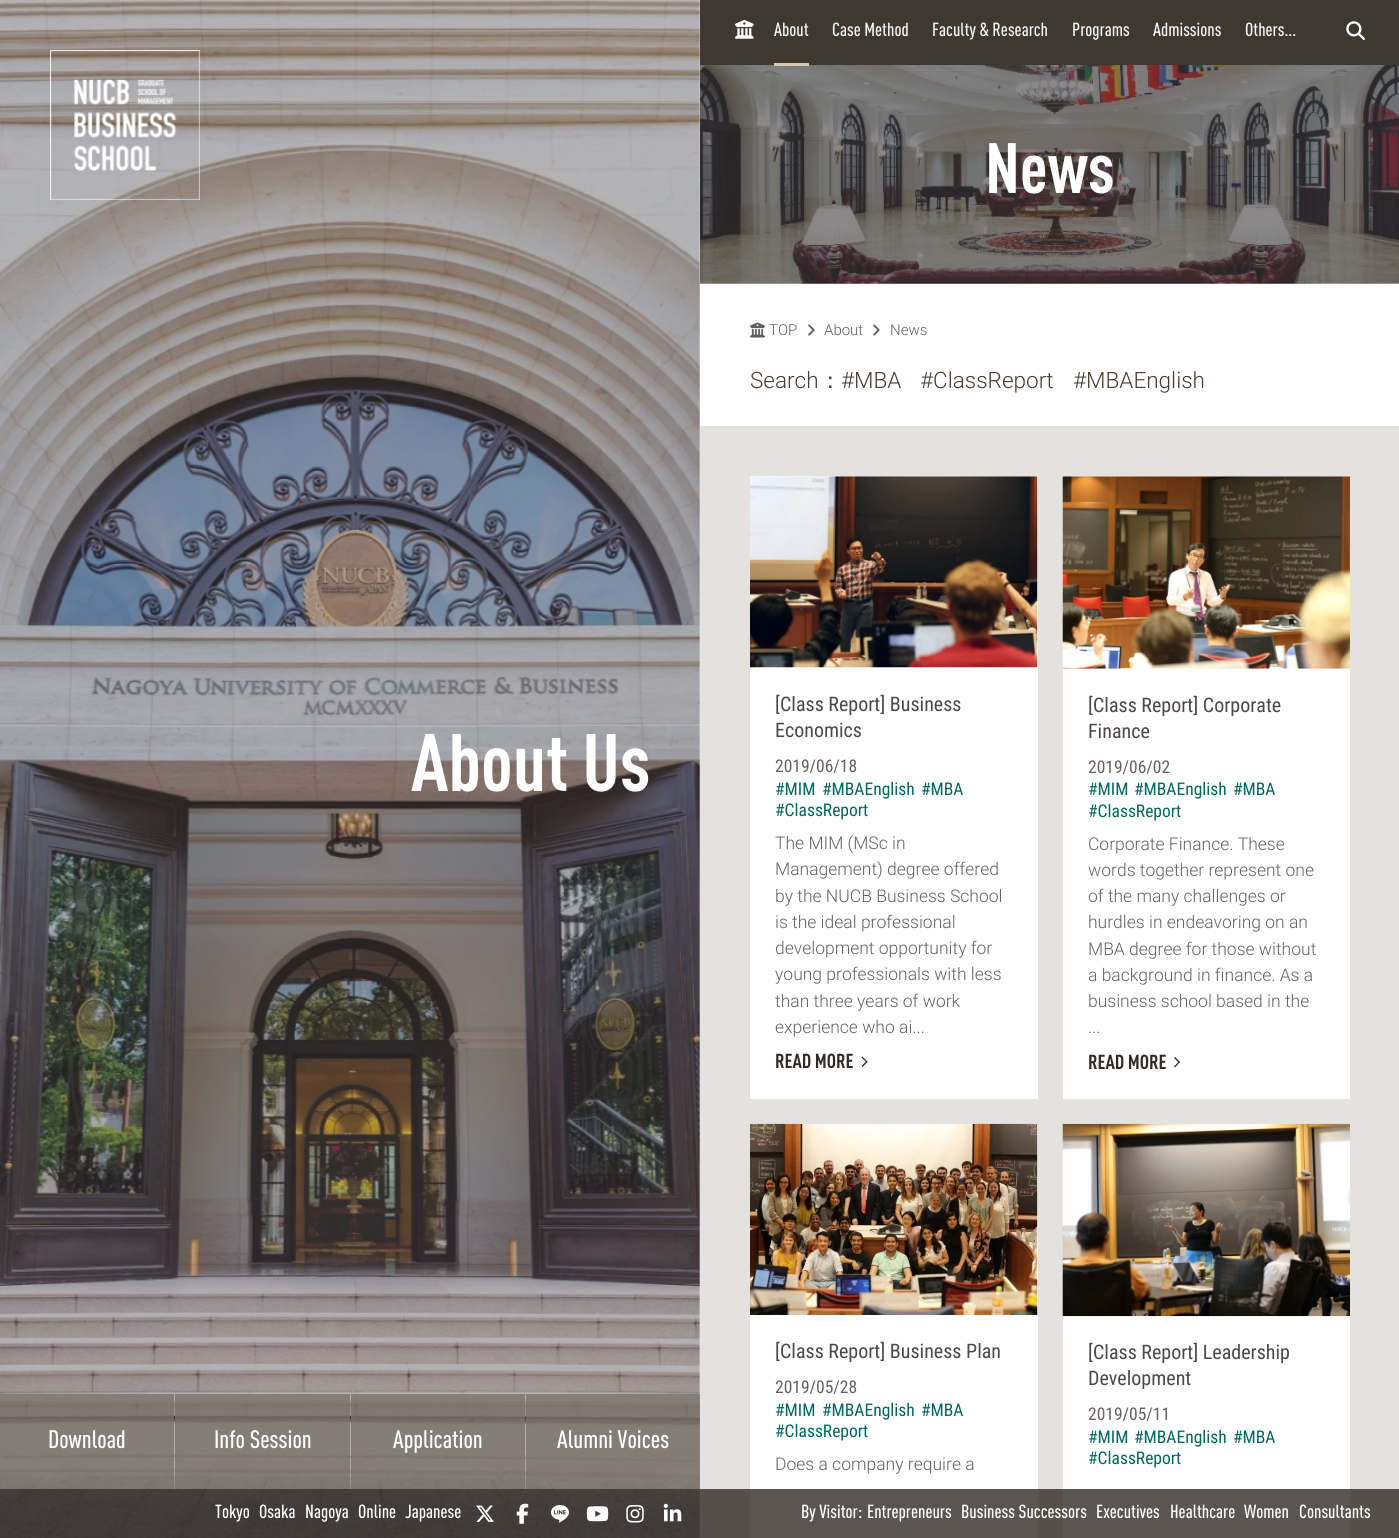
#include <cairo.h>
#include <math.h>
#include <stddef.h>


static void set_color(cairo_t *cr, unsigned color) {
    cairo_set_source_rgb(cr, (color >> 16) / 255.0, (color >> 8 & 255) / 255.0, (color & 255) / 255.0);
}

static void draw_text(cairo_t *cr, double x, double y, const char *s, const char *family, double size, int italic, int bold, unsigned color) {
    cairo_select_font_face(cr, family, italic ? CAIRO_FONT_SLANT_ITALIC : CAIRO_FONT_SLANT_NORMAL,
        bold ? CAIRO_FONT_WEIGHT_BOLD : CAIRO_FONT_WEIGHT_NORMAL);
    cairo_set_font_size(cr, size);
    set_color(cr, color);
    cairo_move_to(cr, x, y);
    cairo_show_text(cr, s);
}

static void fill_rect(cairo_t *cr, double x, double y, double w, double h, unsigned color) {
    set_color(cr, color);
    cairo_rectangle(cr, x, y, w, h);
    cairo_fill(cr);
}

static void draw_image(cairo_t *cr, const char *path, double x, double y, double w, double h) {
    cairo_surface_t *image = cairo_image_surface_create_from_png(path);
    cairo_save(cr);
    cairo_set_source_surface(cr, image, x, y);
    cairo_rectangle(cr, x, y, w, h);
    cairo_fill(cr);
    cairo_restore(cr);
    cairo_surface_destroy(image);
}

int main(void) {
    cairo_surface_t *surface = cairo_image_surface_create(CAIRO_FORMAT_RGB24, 1399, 1538);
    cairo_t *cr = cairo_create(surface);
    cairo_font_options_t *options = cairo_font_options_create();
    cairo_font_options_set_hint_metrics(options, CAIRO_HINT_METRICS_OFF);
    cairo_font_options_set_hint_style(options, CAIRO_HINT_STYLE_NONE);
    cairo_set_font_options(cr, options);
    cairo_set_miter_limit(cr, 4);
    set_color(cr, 0xFFFFFF);
    cairo_paint(cr);
    draw_image(cr, "assets/img1.png", 0, 0, 700, 1538);
    draw_image(cr, "assets/img2.png", 50, 50, 150, 150);
    draw_text(cr, 411, 791, "About Us", "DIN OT", 80, 0, 1, 0xFFFFFF);
    cairo_set_source_rgba(cr, 0.478, 0.447, 0.412, 0.8);
    cairo_rectangle(cr, 0, 1394, 174, 95);
    cairo_fill(cr);
    draw_text(cr, 48, 1448, "Download", "DIN OT Medium", 25, 0, 0, 0xFFFFFF);
    cairo_set_source_rgba(cr, 0.478, 0.447, 0.412, 0.8);
    cairo_rectangle(cr, 175, 1394, 175, 95);
    cairo_fill(cr);
    draw_text(cr, 214, 1448, "Info Session", "DIN OT Medium", 25, 0, 0, 0xFFFFFF);
    cairo_set_source_rgba(cr, 0.478, 0.447, 0.412, 0.8);
    cairo_rectangle(cr, 351, 1394, 174, 95);
    cairo_fill(cr);
    draw_text(cr, 393, 1448, "Application", "DIN OT Medium", 25, 0, 0, 0xFFFFFF);
    cairo_set_source_rgba(cr, 0.478, 0.447, 0.412, 0.8);
    cairo_rectangle(cr, 526, 1394, 174, 95);
    cairo_fill(cr);
    draw_text(cr, 557, 1448, "Alumni Voices", "DIN OT Medium", 25, 0, 0, 0xFFFFFF);
    cairo_set_source_rgba(cr, 0.192, 0.169, 0.149, 0.8);
    cairo_rectangle(cr, 0, 1489, 700, 49);
    cairo_fill(cr);
    draw_text(cr, 215, 1518, "Tokyo", "DIN OT Medium", 18.75, 0, 0, 0xFFFFFF);
    draw_text(cr, 259, 1518, "Osaka", "DIN OT Medium", 18.75, 0, 0, 0xFFFFFF);
    draw_text(cr, 305, 1518, "Nagoya", "DIN OT Medium", 18.75, 0, 0, 0xFFFFFF);
    draw_text(cr, 358, 1518, "Online", "DIN OT Medium", 18.75, 0, 0, 0xFFFFFF);
    draw_text(cr, 405, 1518, "Japanese", "DIN OT Medium", 18.75, 0, 0, 0xFFFFFF);
    draw_image(cr, "assets/img3.png", 476, 1505, 18, 17);
    draw_image(cr, "assets/img4.png", 516, 1503, 13, 21);
    draw_image(cr, "assets/img5.png", 551, 1505, 18, 18);
    draw_image(cr, "assets/img6.png", 586, 1506, 23, 16);
    draw_image(cr, "assets/img7.png", 626, 1505, 18, 18);
    draw_image(cr, "assets/img8.png", 663, 1503, 19, 19);
    fill_rect(cr, 700, 0, 699, 65, 0x3F3831);
    draw_image(cr, "assets/img9.png", 735, 20, 19, 19);
    draw_image(cr, "assets/img11.png", 700, 65, 699, 219);
    cairo_set_source_rgba(cr, 0.851, 0.816, 0.737, 0.95);
    cairo_rectangle(cr, 774, 63, 35, 3);
    cairo_fill(cr);
    draw_text(cr, 774, 36, "About", "DIN OT Medium", 18.75, 0, 0, 0xF5F5F5);
    draw_text(cr, 832, 36, "Case Method", "DIN OT Medium", 18.75, 0, 0, 0xF5F5F5);
    draw_text(cr, 932, 36, "Faculty & Research", "DIN OT Medium", 18.75, 0, 0, 0xF5F5F5);
    draw_text(cr, 1072, 36, "Programs", "DIN OT Medium", 18.75, 0, 0, 0xF5F5F5);
    draw_text(cr, 1153, 36, "Admissions", "DIN OT Medium", 18.75, 0, 0, 0xF5F5F5);
    draw_text(cr, 1245, 36, "Others...", "DIN OT Medium", 18.75, 0, 0, 0xF5F5F5);
    draw_image(cr, "assets/img10.png", 1346, 21, 19, 19);
    draw_text(cr, 985, 193, "News", "DIN OT", 70, 0, 1, 0xFFFFFF);
    draw_image(cr, "assets/img12.png", 750, 322, 15, 16);
    draw_text(cr, 769, 335, "TOP", "Roboto Light", 15, 0, 0, 0x606060);
    draw_image(cr, "assets/img13.png", 808, 324, 7, 12);
    draw_text(cr, 824, 335, "About", "Roboto Light", 15, 0, 0, 0x606060);
    draw_image(cr, "assets/img13.png", 873, 324, 7, 12);
    draw_text(cr, 890, 335, "News", "Roboto Light", 15, 0, 0, 0x606060);
    draw_text(cr, 750, 388, "Search", "Roboto Light", 22.5, 0, 0, 0x463D35);
    draw_text(cr, 819, 388, "：", "WenQuanYi Zen Hei Medium", 22.5, 0, 0, 0x463D35);
    draw_text(cr, 841, 388, "#MBA", "Roboto Light", 22.5, 0, 0, 0x463D35);
    draw_text(cr, 920, 388, "#ClassReport", "Roboto Light", 22.5, 0, 0, 0x463D35);
    draw_text(cr, 1073, 388, "#MBAEnglish", "Roboto Light", 22.5, 0, 0, 0x463D35);
    fill_rect(cr, 700, 426, 699, 1112, 0xE4E2DE);
    fill_rect(cr, 750, 476, 288, 623, 0xFFFFFF);
    draw_image(cr, "assets/img14.png", 750, 476, 288, 192);
    draw_text(cr, 775, 711, "[Class Report] Business", "Roboto Condensed", 20, 0, 0, 0x4D4848);
    draw_text(cr, 775, 737, "Economics", "Roboto Condensed", 20, 0, 0, 0x4D4848);
    draw_text(cr, 775, 772, "2019/06/18", "Roboto Condensed", 17.5, 0, 0, 0x676161);
    draw_text(cr, 775, 795, "#MIM", "Roboto Condensed", 17.5, 0, 0, 0x006860);
    draw_text(cr, 822, 795, "#MBAEnglish", "Roboto Condensed", 17.5, 0, 0, 0x006860);
    draw_text(cr, 921, 795, "#MBA", "Roboto Condensed", 17.5, 0, 0, 0x006860);
    draw_text(cr, 775, 816, "#ClassReport", "Roboto Condensed", 17.5, 0, 0, 0x006860);
    draw_text(cr, 775, 849, "The MIM (MSc in", "Roboto Light", 17.5, 0, 0, 0x676161);
    draw_text(cr, 775, 875, "Management) degree offered", "Roboto Light", 17.5, 0, 0, 0x676161);
    draw_text(cr, 775, 902, "by the NUCB Business School", "Roboto Light", 17.5, 0, 0, 0x676161);
    draw_text(cr, 775, 928, "is the ideal professional", "Roboto Light", 17.5, 0, 0, 0x676161);
    draw_text(cr, 775, 954, "development opportunity for", "Roboto Light", 17.5, 0, 0, 0x676161);
    draw_text(cr, 775, 980, "young professionals with less", "Roboto Light", 17.5, 0, 0, 0x676161);
    draw_text(cr, 775, 1007, "than three years of work", "Roboto Light", 17.5, 0, 0, 0x676161);
    draw_text(cr, 775, 1033, "experience who ai...", "Roboto Light", 17.5, 0, 0, 0x676161);
    draw_text(cr, 775, 1068, "READ MORE", "DIN OT", 20, 0, 1, 0x312B26);
    cairo_new_path(cr);
    cairo_move_to(cr, 867.5, 1062);
    cairo_line_to(cr, 862.5, 1067);
    cairo_line_to(cr, 861.5, 1066);
    cairo_line_to(cr, 866.5, 1061);
    cairo_close_path(cr);
    cairo_fill(cr);
    cairo_new_path(cr);
    cairo_move_to(cr, 867.5, 1062);
    cairo_line_to(cr, 866.5, 1062.5);
    cairo_line_to(cr, 861.5, 1057.5);
    cairo_line_to(cr, 862.5, 1056.5);
    cairo_close_path(cr);
    cairo_fill(cr);
    fill_rect(cr, 1063, 476, 287, 623, 0xFFFFFF);
    draw_image(cr, "assets/img15.png", 1062, 476, 288, 193);
    draw_text(cr, 1088, 712, "[Class Report] Corporate", "Roboto Condensed", 20, 0, 0, 0x4D4848);
    draw_text(cr, 1088, 738, "Finance", "Roboto Condensed", 20, 0, 0, 0x4D4848);
    draw_text(cr, 1088, 773, "2019/06/02", "Roboto Condensed", 17.5, 0, 0, 0x676161);
    draw_text(cr, 1088, 795, "#MIM", "Roboto Condensed", 17.5, 0, 0, 0x006860);
    draw_text(cr, 1134, 795, "#MBAEnglish", "Roboto Condensed", 17.5, 0, 0, 0x006860);
    draw_text(cr, 1233, 795, "#MBA", "Roboto Condensed", 17.5, 0, 0, 0x006860);
    draw_text(cr, 1088, 817, "#ClassReport", "Roboto Condensed", 17.5, 0, 0, 0x006860);
    draw_text(cr, 1088, 850, "Corporate Finance. These", "Roboto Light", 17.5, 0, 0, 0x676161);
    draw_text(cr, 1088, 876, "words together represent one", "Roboto Light", 17.5, 0, 0, 0x676161);
    draw_text(cr, 1088, 902, "of the many challenges or", "Roboto Light", 17.5, 0, 0, 0x676161);
    draw_text(cr, 1088, 928, "hurdles in endeavoring on an", "Roboto Light", 17.5, 0, 0, 0x676161);
    draw_text(cr, 1088, 955, "MBA degree for those without", "Roboto Light", 17.5, 0, 0, 0x676161);
    draw_text(cr, 1088, 981, "a background in finance. As a", "Roboto Light", 17.5, 0, 0, 0x676161);
    draw_text(cr, 1088, 1007, "business school based in the", "Roboto Light", 17.5, 0, 0, 0x676161);
    draw_text(cr, 1088, 1033, "...", "Roboto Light", 17.5, 0, 0, 0x676161);
    draw_text(cr, 1088, 1069, "READ MORE", "DIN OT", 20, 0, 1, 0x312B26);
    cairo_new_path(cr);
    cairo_move_to(cr, 1180, 1062);
    cairo_line_to(cr, 1175, 1067.5);
    cairo_line_to(cr, 1174, 1066.5);
    cairo_line_to(cr, 1179, 1061.5);
    cairo_close_path(cr);
    cairo_fill(cr);
    cairo_new_path(cr);
    cairo_move_to(cr, 1180, 1062);
    cairo_line_to(cr, 1179, 1063);
    cairo_line_to(cr, 1174, 1058);
    cairo_line_to(cr, 1175, 1057);
    cairo_close_path(cr);
    cairo_fill(cr);
    fill_rect(cr, 750, 1124, 288, 414, 0xFFFFFF);
    draw_image(cr, "assets/img16.png", 750, 1123, 288, 192);
    draw_text(cr, 775, 1358, "[Class Report] Business Plan", "Roboto Condensed", 20, 0, 0, 0x4D4848);
    draw_text(cr, 775, 1393, "2019/05/28", "Roboto Condensed", 17.5, 0, 0, 0x676161);
    draw_text(cr, 775, 1416, "#MIM", "Roboto Condensed", 17.5, 0, 0, 0x006860);
    draw_text(cr, 822, 1416, "#MBAEnglish", "Roboto Condensed", 17.5, 0, 0, 0x006860);
    draw_text(cr, 921, 1416, "#MBA", "Roboto Condensed", 17.5, 0, 0, 0x006860);
    draw_text(cr, 775, 1437, "#ClassReport", "Roboto Condensed", 17.5, 0, 0, 0x006860);
    draw_text(cr, 775, 1470, "Does a company require a", "Roboto Light", 17.5, 0, 0, 0x676161);
    fill_rect(cr, 1063, 1316, 287, 222, 0xFFFFFF);
    draw_image(cr, "assets/img17.png", 1062, 1123, 288, 194);
    draw_text(cr, 1088, 1359, "[Class Report] Leadership", "Roboto Condensed", 20, 0, 0, 0x4D4848);
    draw_text(cr, 1088, 1385, "Development", "Roboto Condensed", 20, 0, 0, 0x4D4848);
    draw_text(cr, 1088, 1420, "2019/05/11", "Roboto Condensed", 17.5, 0, 0, 0x676161);
    draw_text(cr, 1088, 1443, "#MIM", "Roboto Condensed", 17.5, 0, 0, 0x006860);
    draw_text(cr, 1134, 1443, "#MBAEnglish", "Roboto Condensed", 17.5, 0, 0, 0x006860);
    draw_text(cr, 1233, 1443, "#MBA", "Roboto Condensed", 17.5, 0, 0, 0x006860);
    draw_text(cr, 1088, 1464, "#ClassReport", "Roboto Condensed", 17.5, 0, 0, 0x006860);
    cairo_set_source_rgba(cr, 0.192, 0.169, 0.149, 0.8);
    cairo_rectangle(cr, 700, 1489, 699, 49);
    cairo_fill(cr);
    draw_text(cr, 801, 1518, "By Visitor:", "DIN OT Medium", 18.75, 0, 0, 0xFFFFFF);
    draw_text(cr, 867, 1518, "Entrepreneurs", "DIN OT Medium", 18.75, 0, 0, 0xFFFFFF);
    draw_text(cr, 961, 1518, "Business Successors", "DIN OT Medium", 18.75, 0, 0, 0xFFFFFF);
    draw_text(cr, 1096, 1518, "Executives", "DIN OT Medium", 18.75, 0, 0, 0xFFFFFF);
    draw_text(cr, 1170, 1518, "Healthcare", "DIN OT Medium", 18.75, 0, 0, 0xFFFFFF);
    draw_text(cr, 1244, 1518, "Women", "DIN OT Medium", 18.75, 0, 0, 0xFFFFFF);
    draw_text(cr, 1299, 1518, "Consultants", "DIN OT Medium", 18.75, 0, 0, 0xFFFFFF);
    cairo_surface_write_to_png(surface, "output.png");
    cairo_font_options_destroy(options);
    cairo_destroy(cr);
    cairo_surface_destroy(surface);
    return 0;
}
